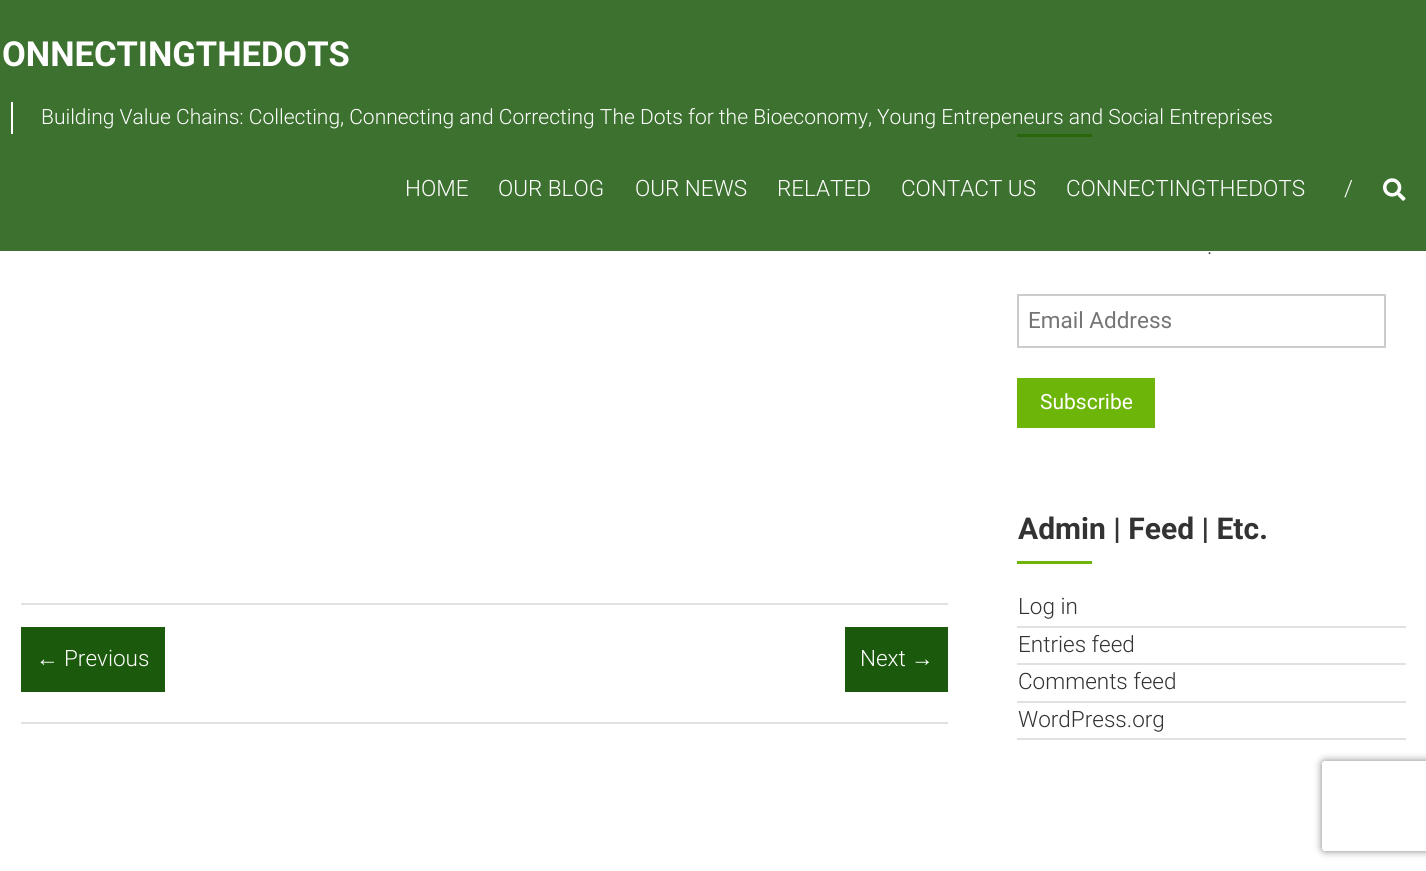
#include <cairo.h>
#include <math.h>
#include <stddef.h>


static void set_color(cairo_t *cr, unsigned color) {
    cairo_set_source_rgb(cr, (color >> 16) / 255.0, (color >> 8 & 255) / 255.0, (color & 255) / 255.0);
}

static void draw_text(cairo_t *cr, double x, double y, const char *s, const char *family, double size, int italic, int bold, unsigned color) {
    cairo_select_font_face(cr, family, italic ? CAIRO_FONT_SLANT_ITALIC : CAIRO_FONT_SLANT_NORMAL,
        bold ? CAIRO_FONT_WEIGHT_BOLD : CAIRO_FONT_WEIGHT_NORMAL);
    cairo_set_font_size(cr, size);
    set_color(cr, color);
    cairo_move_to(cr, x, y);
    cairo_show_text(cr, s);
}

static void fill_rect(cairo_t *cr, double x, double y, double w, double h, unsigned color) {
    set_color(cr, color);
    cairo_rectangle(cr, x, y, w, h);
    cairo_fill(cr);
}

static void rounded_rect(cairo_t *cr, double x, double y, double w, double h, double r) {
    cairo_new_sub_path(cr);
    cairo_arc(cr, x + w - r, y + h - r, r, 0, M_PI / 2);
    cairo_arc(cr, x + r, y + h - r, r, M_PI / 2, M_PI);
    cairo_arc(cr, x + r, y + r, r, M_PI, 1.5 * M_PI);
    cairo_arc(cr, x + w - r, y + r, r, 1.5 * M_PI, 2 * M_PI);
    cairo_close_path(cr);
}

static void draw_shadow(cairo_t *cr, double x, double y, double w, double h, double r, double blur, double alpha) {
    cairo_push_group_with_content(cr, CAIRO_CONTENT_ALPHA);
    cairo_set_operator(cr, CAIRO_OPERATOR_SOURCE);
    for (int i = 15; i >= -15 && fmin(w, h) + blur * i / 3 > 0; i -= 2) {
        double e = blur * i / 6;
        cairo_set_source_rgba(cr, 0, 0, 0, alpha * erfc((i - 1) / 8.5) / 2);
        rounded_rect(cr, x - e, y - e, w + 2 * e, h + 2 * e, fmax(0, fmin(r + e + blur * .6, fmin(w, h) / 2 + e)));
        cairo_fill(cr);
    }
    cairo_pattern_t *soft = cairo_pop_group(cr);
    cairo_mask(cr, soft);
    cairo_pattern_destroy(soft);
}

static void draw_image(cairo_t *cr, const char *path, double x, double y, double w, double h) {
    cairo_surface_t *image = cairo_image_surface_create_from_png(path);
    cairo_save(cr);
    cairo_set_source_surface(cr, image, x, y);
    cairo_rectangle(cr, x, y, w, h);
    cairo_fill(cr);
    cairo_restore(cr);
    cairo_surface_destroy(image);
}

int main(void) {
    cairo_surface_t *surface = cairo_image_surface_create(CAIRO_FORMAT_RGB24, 1426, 871);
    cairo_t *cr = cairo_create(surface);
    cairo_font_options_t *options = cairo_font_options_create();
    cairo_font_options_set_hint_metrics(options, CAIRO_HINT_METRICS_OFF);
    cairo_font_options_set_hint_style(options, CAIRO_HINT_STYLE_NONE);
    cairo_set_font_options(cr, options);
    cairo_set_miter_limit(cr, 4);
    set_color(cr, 0xFFFFFF);
    cairo_paint(cr);
    fill_rect(cr, 1017, 134, 75, 3, 0x6EB50A);
    cairo_set_source_rgba(cr, 0.106, 0.349, 0.047, 0.85);
    cairo_rectangle(cr, 0, 0, 1426, 251);
    cairo_fill(cr);
    draw_text(cr, 2, 66, "ONNECTINGTHEDOTS", "Roboto", 34.5, 0, 1, 0xFFFFFF);
    fill_rect(cr, 11, 102, 2, 32, 0xFFFFFF);
    draw_text(cr, 41, 124, "Building Value Chains: Collecting, Connecting and Correcting The Dots for the Bioeconomy, Young Entrepeneurs and Social Entreprises", "Roboto Light", 21, 0, 0, 0xFFFFFF);
    draw_text(cr, 405, 196, "HOME", "Roboto Light", 22.5, 0, 0, 0xFFFFFF);
    draw_text(cr, 498, 196, "OUR BLOG", "Roboto Light", 22.5, 0, 0, 0xFFFFFF);
    draw_text(cr, 635, 196, "OUR NEWS", "Roboto Light", 22.5, 0, 0, 0xFFFFFF);
    draw_text(cr, 777, 196, "RELATED", "Roboto Light", 22.5, 0, 0, 0xFFFFFF);
    draw_text(cr, 901, 196, "CONTACT US", "Roboto Light", 22.5, 0, 0, 0xFFFFFF);
    draw_text(cr, 1066, 196, "CONNECTINGTHEDOTS", "Roboto Light", 22.5, 0, 0, 0xFFFFFF);
    draw_text(cr, 1344, 196, "/", "Roboto Light", 22.5, 0, 0, 0xFFFFFF);
    draw_image(cr, "assets/img1.png", 1383, 178, 23, 23);
    fill_rect(cr, 21, 603, 927, 2, 0xE1E1E1);
    fill_rect(cr, 21, 722, 927, 2, 0xE1E1E1);
    fill_rect(cr, 21, 627, 144, 65, 0x1B590C);
    draw_text(cr, 36, 666, "←", "Liberation Sans", 22.5, 0, 0, 0xFFFFFF);
    draw_text(cr, 64, 666, "Previous", "Roboto Light", 22.5, 0, 0, 0xFFFFFF);
    fill_rect(cr, 845, 627, 103, 65, 0x1B590C);
    draw_text(cr, 860, 666, "Next", "Roboto Light", 22.5, 0, 0, 0xFFFFFF);
    draw_text(cr, 911, 666, "→", "Liberation Sans", 22.5, 0, 0, 0xFFFFFF);
    draw_text(cr, 1207, 254, ".", "Roboto Light", 22.5, 0, 0, 0x333333);
    cairo_rectangle(cr, 1018, 295, 367, 52);
    set_color(cr, 0xCCCCCC);
    cairo_stroke(cr);
    draw_text(cr, 1028, 328, "Email Address", "Roboto", 22.5, 0, 0, 0x757575);
    fill_rect(cr, 1017, 378, 138, 50, 0x6EB50A);
    draw_text(cr, 1040, 409, "Subscribe", "Roboto", 21, 0, 0, 0xFFFFFF);
    draw_text(cr, 1018, 539, "Admin | Feed | Etc.", "Roboto", 30, 0, 1, 0x333333);
    fill_rect(cr, 1017, 561, 75, 3, 0x6EB50A);
    fill_rect(cr, 1017, 626, 389, 2, 0xE1E1E1);
    draw_text(cr, 1018, 614, "Log in", "Roboto Light", 22.5, 0, 0, 0x333333);
    fill_rect(cr, 1017, 663, 389, 2, 0xE1E1E1);
    draw_text(cr, 1018, 652, "Entries feed", "Roboto Light", 22.5, 0, 0, 0x333333);
    fill_rect(cr, 1017, 701, 389, 2, 0xE1E1E1);
    draw_text(cr, 1018, 689, "Comments feed", "Roboto Light", 22.5, 0, 0, 0x333333);
    fill_rect(cr, 1017, 738, 389, 2, 0xE1E1E1);
    draw_text(cr, 1018, 727, "WordPress.org", "Roboto Light", 22.5, 0, 0, 0x333333);
    cairo_save(cr);
    cairo_set_fill_rule(cr, CAIRO_FILL_RULE_EVEN_ODD);
    cairo_new_path(cr);
    cairo_move_to(cr, 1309, 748);
    cairo_line_to(cr, 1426, 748);
    cairo_line_to(cr, 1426, 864);
    cairo_line_to(cr, 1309, 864);
    cairo_close_path(cr);
    cairo_move_to(cr, 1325, 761);
    cairo_line_to(cr, 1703, 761);
    cairo_curve_to(cr, 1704.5, 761, 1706, 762.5, 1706, 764);
    cairo_line_to(cr, 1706, 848);
    cairo_curve_to(cr, 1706, 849.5, 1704.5, 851, 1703, 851);
    cairo_line_to(cr, 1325, 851);
    cairo_curve_to(cr, 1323.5, 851, 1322, 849.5, 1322, 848);
    cairo_line_to(cr, 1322, 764);
    cairo_curve_to(cr, 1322, 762.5, 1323.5, 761, 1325, 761);
    cairo_close_path(cr);
    cairo_clip(cr);
    set_color(cr, 0x808080);
    draw_shadow(cr, 1322, 761, 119, 90, 3, 4, 1);
    cairo_restore(cr);
    cairo_surface_write_to_png(surface, "output.png");
    cairo_font_options_destroy(options);
    cairo_destroy(cr);
    cairo_surface_destroy(surface);
    return 0;
}
